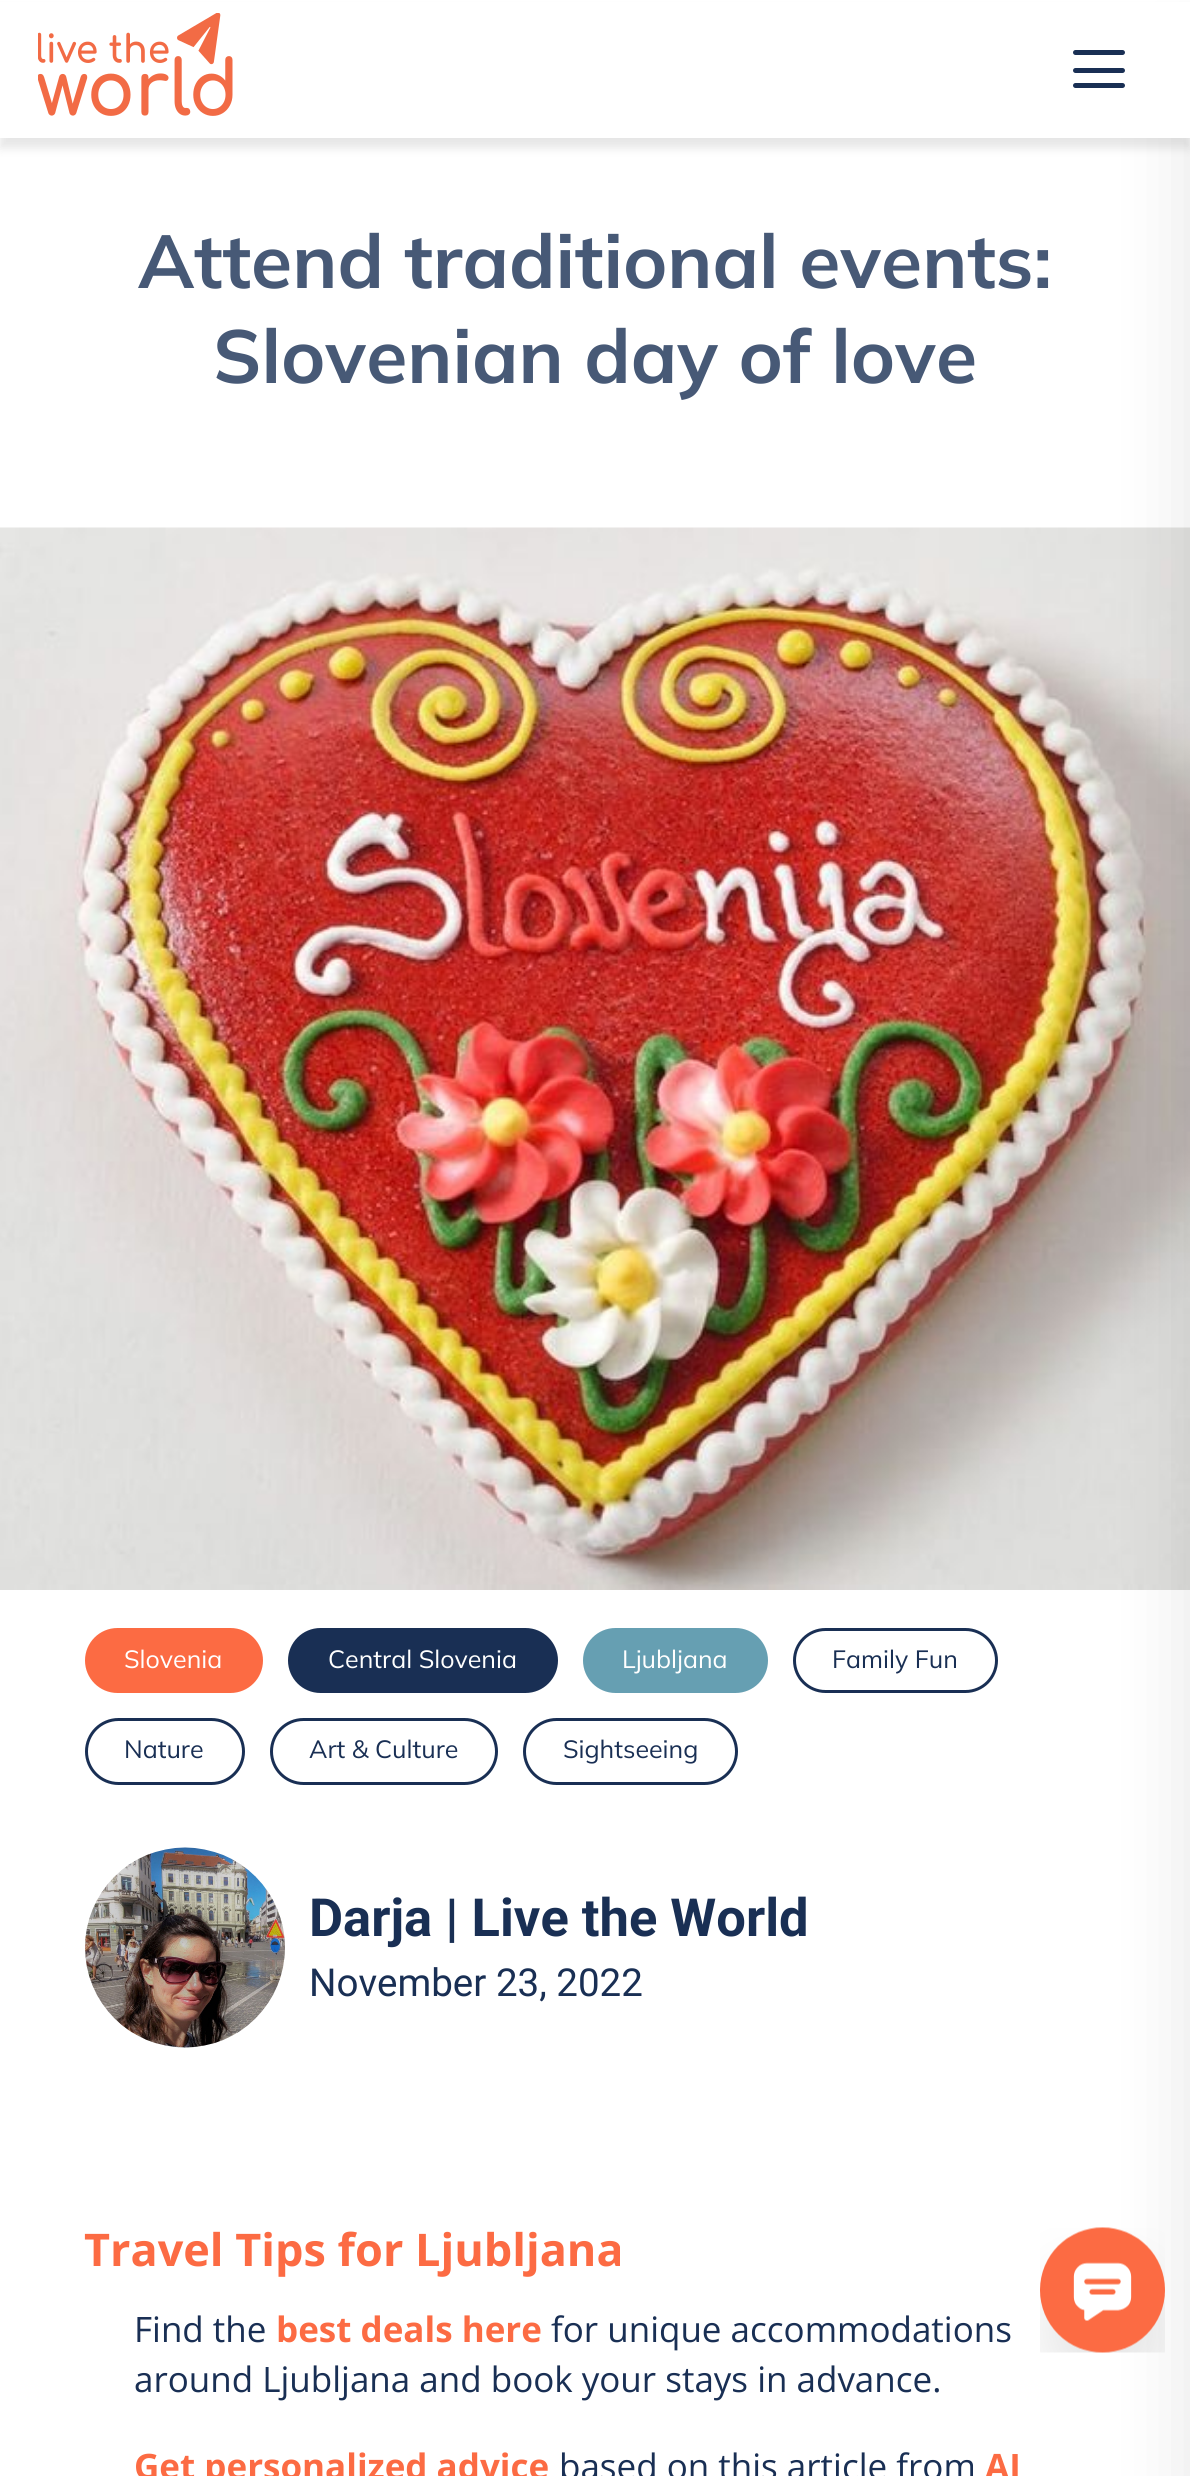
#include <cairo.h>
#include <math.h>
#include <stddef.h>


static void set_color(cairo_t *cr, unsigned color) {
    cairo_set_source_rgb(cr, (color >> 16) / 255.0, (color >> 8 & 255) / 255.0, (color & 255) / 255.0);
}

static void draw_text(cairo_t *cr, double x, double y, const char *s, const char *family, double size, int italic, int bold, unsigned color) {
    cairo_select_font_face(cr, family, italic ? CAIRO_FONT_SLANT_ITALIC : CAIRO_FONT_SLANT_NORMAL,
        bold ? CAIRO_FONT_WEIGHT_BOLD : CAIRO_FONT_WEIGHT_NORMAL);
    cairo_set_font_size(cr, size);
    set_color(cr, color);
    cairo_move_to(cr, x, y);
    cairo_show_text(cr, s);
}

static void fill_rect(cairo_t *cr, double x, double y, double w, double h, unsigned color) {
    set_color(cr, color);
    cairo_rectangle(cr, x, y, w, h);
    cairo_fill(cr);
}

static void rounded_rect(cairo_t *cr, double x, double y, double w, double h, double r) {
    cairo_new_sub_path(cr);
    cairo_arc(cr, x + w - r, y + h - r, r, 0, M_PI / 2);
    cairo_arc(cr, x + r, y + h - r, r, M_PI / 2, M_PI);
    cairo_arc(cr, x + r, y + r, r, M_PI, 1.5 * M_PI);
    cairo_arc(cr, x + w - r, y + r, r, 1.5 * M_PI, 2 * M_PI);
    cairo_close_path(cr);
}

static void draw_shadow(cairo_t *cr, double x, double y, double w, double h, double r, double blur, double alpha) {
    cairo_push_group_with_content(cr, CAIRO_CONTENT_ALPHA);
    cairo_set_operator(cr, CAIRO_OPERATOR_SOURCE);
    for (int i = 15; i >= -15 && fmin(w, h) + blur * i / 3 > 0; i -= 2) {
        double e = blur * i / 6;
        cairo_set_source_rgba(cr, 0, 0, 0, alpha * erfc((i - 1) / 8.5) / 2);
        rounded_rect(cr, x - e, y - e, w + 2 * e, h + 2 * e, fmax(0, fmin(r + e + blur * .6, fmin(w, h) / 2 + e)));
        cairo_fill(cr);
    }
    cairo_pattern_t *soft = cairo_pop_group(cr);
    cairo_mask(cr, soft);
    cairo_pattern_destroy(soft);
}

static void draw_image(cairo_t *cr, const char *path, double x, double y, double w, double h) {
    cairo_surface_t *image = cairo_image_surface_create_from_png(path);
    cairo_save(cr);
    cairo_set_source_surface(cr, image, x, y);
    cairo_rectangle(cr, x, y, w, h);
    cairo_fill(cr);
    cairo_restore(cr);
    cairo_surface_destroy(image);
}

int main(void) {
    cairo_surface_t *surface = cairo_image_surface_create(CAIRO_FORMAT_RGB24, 1190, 2476);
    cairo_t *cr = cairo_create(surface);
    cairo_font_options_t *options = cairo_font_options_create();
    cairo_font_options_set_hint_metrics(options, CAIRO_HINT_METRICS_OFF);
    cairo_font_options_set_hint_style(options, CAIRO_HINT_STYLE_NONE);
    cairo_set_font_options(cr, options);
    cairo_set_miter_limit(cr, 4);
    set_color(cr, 0xFFFFFF);
    cairo_paint(cr);
    set_color(cr, 0x000000);
    draw_shadow(cr, 0, 10, 1190, 138, 0, 5, 0.1);
    draw_image(cr, "assets/img2.png", 0, 527, 1190, 1063);
    draw_shadow(cr, 1190, 50, 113, 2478, 0, 37.5, 0.1);
    fill_rect(cr, 0, 2, 1190, 136, 0xFFFFFF);
    draw_image(cr, "assets/img1.png", 38, 13, 195, 103);
    set_color(cr, 0x192F54);
    rounded_rect(cr, 1073, 50, 52, 5, 2.5);
    cairo_fill(cr);
    rounded_rect(cr, 1073, 68, 52, 5, 2.5);
    cairo_fill(cr);
    rounded_rect(cr, 1073, 83, 52, 5, 2.5);
    cairo_fill(cr);
    draw_text(cr, 138, 288, "Attend traditional events:", "Mulish", 75, 0, 1, 0x475976);
    draw_text(cr, 213, 383, "Slovenian day of love", "Mulish", 75, 0, 1, 0x475976);
    set_color(cr, 0xFC6B43);
    rounded_rect(cr, 86.5, 1629.5, 175, 62, 31);
    cairo_fill_preserve(cr);
    cairo_set_line_width(cr, 3);
    cairo_stroke(cr);
    draw_text(cr, 124, 1668, "Slovenia", "Mulish", 25, 0, 0, 0xFFFFFF);
    set_color(cr, 0x192F54);
    rounded_rect(cr, 289.5, 1629.5, 267, 62, 31);
    cairo_fill_preserve(cr);
    cairo_stroke(cr);
    draw_text(cr, 328, 1668, "Central Slovenia", "Mulish", 25, 0, 0, 0xFFFFFF);
    set_color(cr, 0x669FB2);
    rounded_rect(cr, 584.5, 1629.5, 182, 62, 31);
    cairo_fill_preserve(cr);
    cairo_stroke(cr);
    draw_text(cr, 622, 1668, "Ljubljana", "Mulish", 25, 0, 0, 0xFFFFFF);
    rounded_rect(cr, 794.5, 1629.5, 202, 62, 31);
    set_color(cr, 0x192F54);
    cairo_stroke(cr);
    draw_text(cr, 832, 1668, "Family Fun", "Mulish", 25, 0, 0, 0x192F54);
    rounded_rect(cr, 86.5, 1719.5, 157, 64, 32);
    cairo_stroke(cr);
    draw_text(cr, 124, 1758, "Nature", "Mulish", 25, 0, 0, 0x192F54);
    rounded_rect(cr, 271.5, 1719.5, 225, 64, 32);
    cairo_stroke(cr);
    draw_text(cr, 309, 1758, "Art & Culture", "Mulish", 25, 0, 0, 0x192F54);
    rounded_rect(cr, 524.5, 1719.5, 212, 64, 32);
    cairo_stroke(cr);
    draw_text(cr, 563, 1758, "Sightseeing", "Mulish", 25, 0, 0, 0x192F54);
    draw_image(cr, "assets/img3.png", 85, 1847, 200, 201);
    draw_text(cr, 309, 1936, "Darja | Live the World", "Roboto", 52.5, 0, 1, 0x192F54);
    draw_text(cr, 309, 1996, "November 23, 2022", "Roboto", 38.5, 0, 0, 0x192F54);
    draw_text(cr, 84, 2266, "Travel Tips for Ljubljana", "Open Sans", 45, 0, 1, 0xFC6B43);
    draw_text(cr, 134, 2342, "Find the", "Open Sans", 35, 0, 0, 0x192F54);
    draw_text(cr, 276, 2342, "best deals here", "Open Sans", 35, 0, 1, 0xFC6B43);
    draw_text(cr, 551, 2342, "for unique accommodations", "Open Sans", 35, 0, 0, 0x192F54);
    draw_text(cr, 134, 2392, "around Ljubljana and book your stays in advance.", "Open Sans", 35, 0, 0, 0x192F54);
    draw_text(cr, 134, 2479, "Get personalized advice", "Open Sans", 35, 0, 1, 0xFC6B43);
    draw_text(cr, 559, 2479, "based on this article from", "Open Sans", 35, 0, 0, 0x192F54);
    draw_text(cr, 985, 2479, "AI", "Open Sans", 35, 0, 1, 0xFC6B43);
    draw_image(cr, "assets/img4.png", 1040, 2227, 125, 126);
    cairo_surface_write_to_png(surface, "output.png");
    cairo_font_options_destroy(options);
    cairo_destroy(cr);
    cairo_surface_destroy(surface);
    return 0;
}
